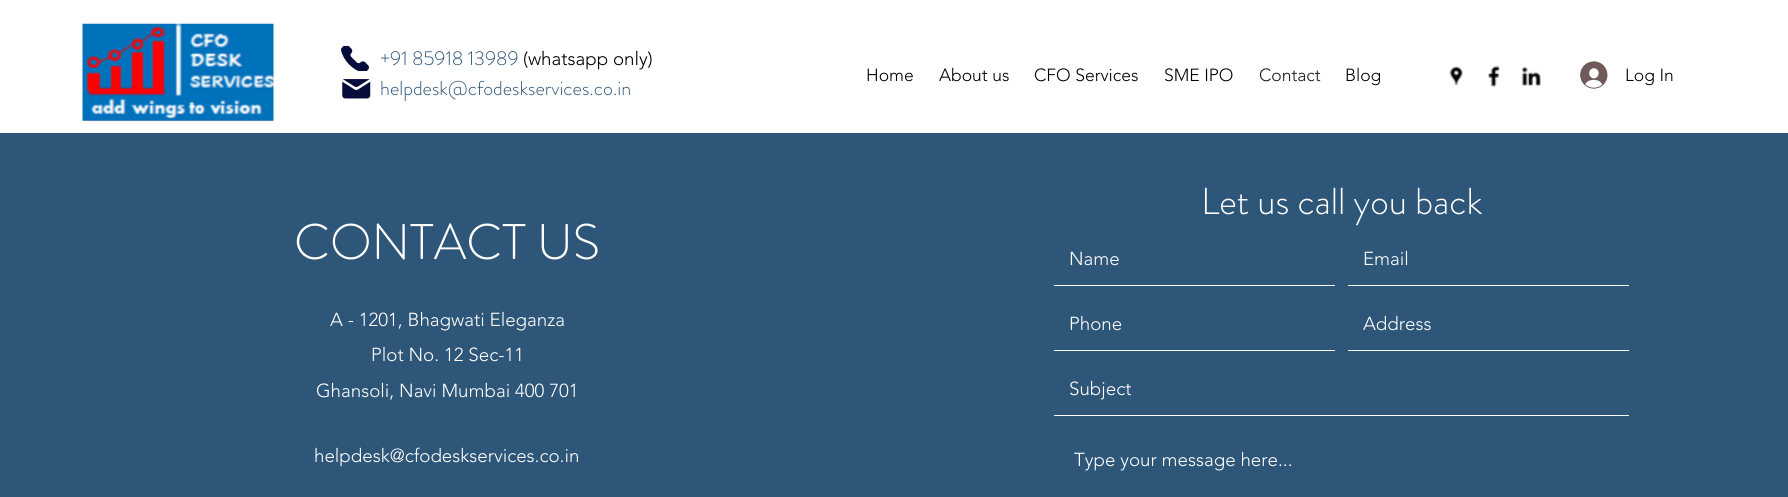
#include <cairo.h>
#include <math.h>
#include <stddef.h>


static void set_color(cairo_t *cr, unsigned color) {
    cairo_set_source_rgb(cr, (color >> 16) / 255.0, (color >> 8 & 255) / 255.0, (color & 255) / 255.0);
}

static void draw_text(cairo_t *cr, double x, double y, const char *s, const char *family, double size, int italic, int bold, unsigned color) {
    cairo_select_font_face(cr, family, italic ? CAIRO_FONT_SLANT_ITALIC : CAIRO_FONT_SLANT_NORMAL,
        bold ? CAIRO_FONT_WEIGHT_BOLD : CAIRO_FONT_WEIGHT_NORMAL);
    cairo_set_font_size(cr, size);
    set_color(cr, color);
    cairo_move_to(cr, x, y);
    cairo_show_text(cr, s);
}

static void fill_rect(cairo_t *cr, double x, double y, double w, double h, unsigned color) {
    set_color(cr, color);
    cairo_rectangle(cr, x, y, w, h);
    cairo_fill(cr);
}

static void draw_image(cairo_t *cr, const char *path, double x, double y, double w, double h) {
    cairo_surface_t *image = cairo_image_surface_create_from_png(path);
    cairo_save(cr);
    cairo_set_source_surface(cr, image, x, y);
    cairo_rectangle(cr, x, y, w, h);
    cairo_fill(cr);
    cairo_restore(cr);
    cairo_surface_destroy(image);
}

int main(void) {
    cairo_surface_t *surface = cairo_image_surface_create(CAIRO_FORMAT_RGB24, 1788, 497);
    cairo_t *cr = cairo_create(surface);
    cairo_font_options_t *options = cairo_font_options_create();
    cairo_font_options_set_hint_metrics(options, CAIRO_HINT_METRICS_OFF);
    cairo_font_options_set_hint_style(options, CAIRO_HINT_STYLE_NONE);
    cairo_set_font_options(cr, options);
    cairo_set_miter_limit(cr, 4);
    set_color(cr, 0xFFFFFF);
    cairo_paint(cr);
    draw_image(cr, "assets/img1.png", 82, 23, 192, 99);
    draw_image(cr, "assets/img2.png", 341, 46, 28, 25);
    draw_text(cr, 380, 65, "+91 85918 13989", "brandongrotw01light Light", 20, 0, 0, 0x2E5678);
    draw_text(cr, 523, 65, "(whatsapp only)", "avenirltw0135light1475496 Light", 18.75, 0, 0, 0x000000);
    draw_text(cr, 866, 81, "Home", "avenirltw0135light1475496 Light", 17.5, 0, 0, 0x000000);
    draw_text(cr, 939, 81, "About us", "avenirltw0135light1475496 Light", 17.5, 0, 0, 0x000000);
    draw_text(cr, 1034, 81, "CFO Services", "avenirltw0135light1475496 Light", 17.5, 0, 0, 0x000000);
    draw_text(cr, 1164, 81, "SME IPO", "avenirltw0135light1475496 Light", 17.5, 0, 0, 0x000000);
    draw_text(cr, 1259, 81, "Contact", "avenirltw0135light1475496 Light", 17.5, 0, 0, 0x191919);
    draw_text(cr, 1345, 81, "Blog", "avenirltw0135light1475496 Light", 17.5, 0, 0, 0x000000);
    draw_image(cr, "assets/img3.png", 1449, 66, 14, 20);
    draw_image(cr, "assets/img4.png", 1488, 65, 12, 22);
    draw_image(cr, "assets/img5.png", 1521, 66, 20, 20);
    draw_image(cr, "assets/img6.png", 1580, 61, 28, 28);
    draw_text(cr, 1625, 81, "Log In", "avenirltw0135light1475496 Light", 17.5, 0, 0, 0x000000);
    draw_image(cr, "assets/img7.png", 342, 79, 29, 20);
    draw_text(cr, 380, 95, "helpdesk@cfodeskservices.co.in", "brandongrotw01light Light", 20, 0, 0, 0x2E5678);
    fill_rect(cr, 0, 133, 1788, 364, 0x2E5678);
    draw_text(cr, 294, 259, "CONTACT US", "brandongrotw01light Light", 50, 0, 0, 0xFFFFFF);
    draw_text(cr, 330, 326, "A - 1201, Bhagwati Eleganza", "avenirltw0135light1475496 Light", 18.75, 0, 0, 0xFFFFFF);
    draw_text(cr, 371, 361, "Plot No. 12 Sec-11", "avenirltw0135light1475496 Light", 18.75, 0, 0, 0xFFFFFF);
    draw_text(cr, 316, 397, "Ghansoli, Navi Mumbai 400 701", "avenirltw0135light1475496 Light", 18.75, 0, 0, 0xFFFFFF);
    draw_text(cr, 314, 462, "helpdesk@cfodeskservices.co.in", "avenirltw0135light1475496 Light", 18.75, 0, 0, 0xFFFFFF);
    draw_text(cr, 1201, 214, "Let us call you back", "brandongrotw01light Light", 37.5, 0, 0, 0xFFFFFF);
    fill_rect(cr, 1054, 285, 281, 1, 0xFFFFFF);
    draw_text(cr, 1069, 265, "Name", "avenirltw0135light1475496 Light", 18.75, 0, 0, 0xFFFFFF);
    fill_rect(cr, 1348, 285, 281, 1, 0xFFFFFF);
    draw_text(cr, 1363, 265, "Email", "avenirltw0135light1475496 Light", 18.75, 0, 0, 0xFFFFFF);
    fill_rect(cr, 1054, 350, 281, 1, 0xFFFFFF);
    draw_text(cr, 1069, 330, "Phone", "avenirltw0135light1475496 Light", 18.75, 0, 0, 0xFFFFFF);
    fill_rect(cr, 1348, 350, 281, 1, 0xFFFFFF);
    draw_text(cr, 1363, 330, "Address", "avenirltw0135light1475496 Light", 18.75, 0, 0, 0xFFFFFF);
    fill_rect(cr, 1054, 415, 575, 1, 0xFFFFFF);
    draw_text(cr, 1069, 395, "Subject", "avenirltw0135light1475496 Light", 18.75, 0, 0, 0xFFFFFF);
    draw_text(cr, 1074, 466, "Type your message here...", "avenirltw0135light1475496 Light", 18.75, 0, 0, 0xFFFFFF);
    cairo_surface_write_to_png(surface, "output.png");
    cairo_font_options_destroy(options);
    cairo_destroy(cr);
    cairo_surface_destroy(surface);
    return 0;
}
